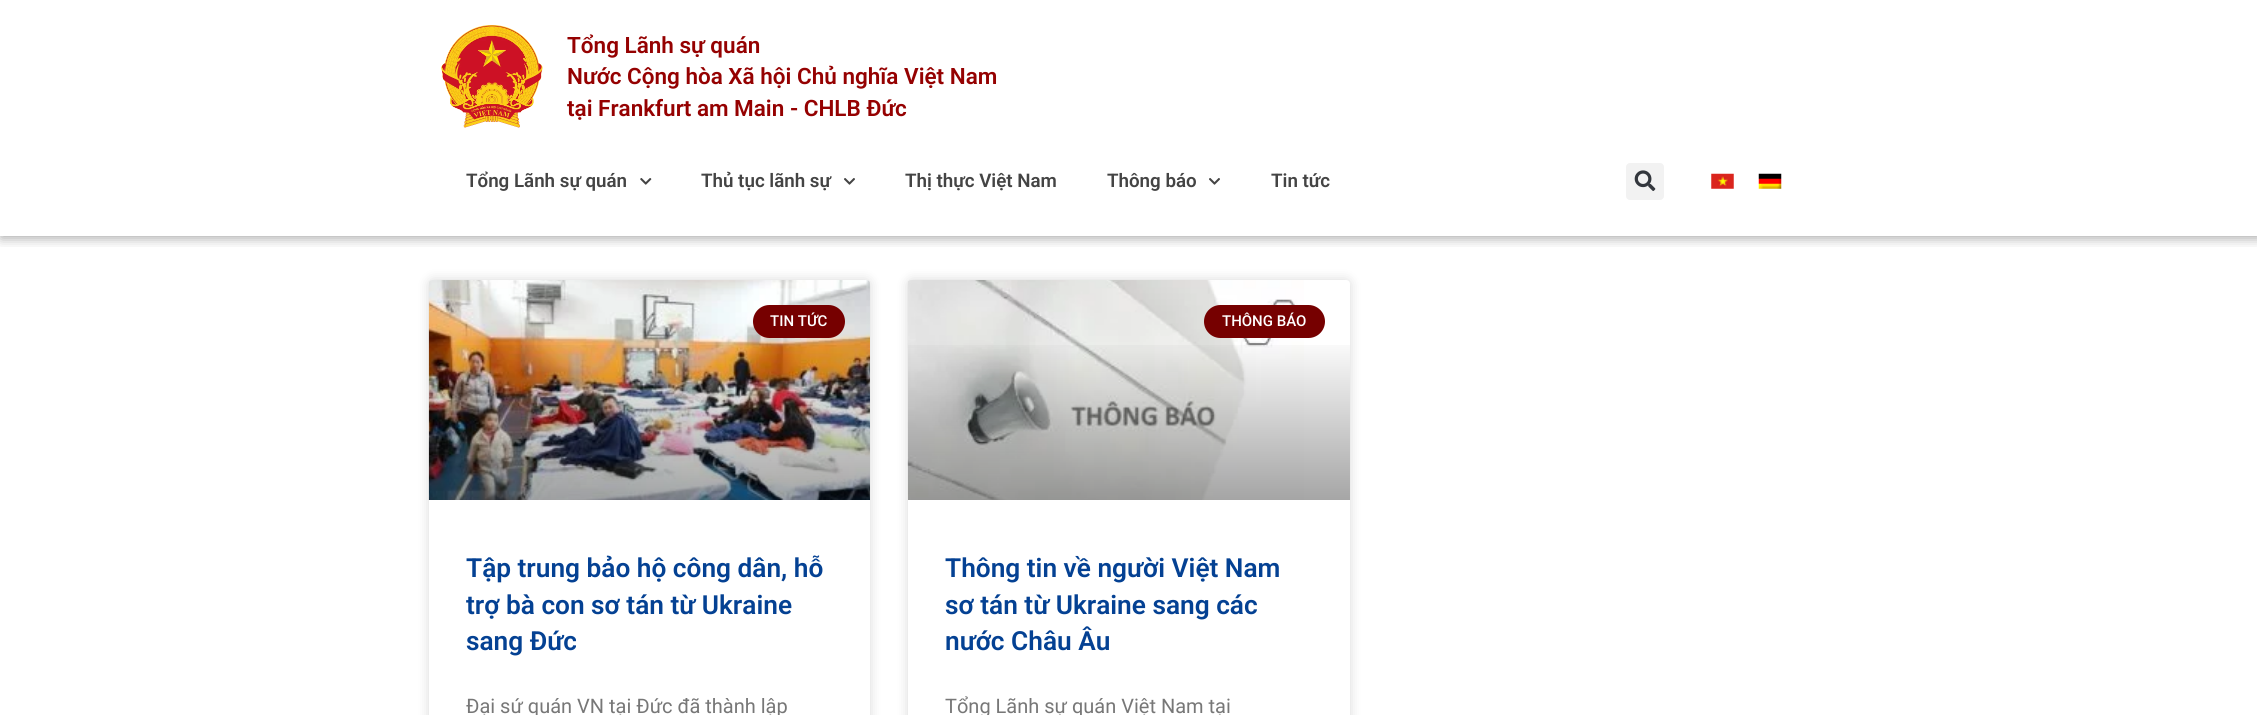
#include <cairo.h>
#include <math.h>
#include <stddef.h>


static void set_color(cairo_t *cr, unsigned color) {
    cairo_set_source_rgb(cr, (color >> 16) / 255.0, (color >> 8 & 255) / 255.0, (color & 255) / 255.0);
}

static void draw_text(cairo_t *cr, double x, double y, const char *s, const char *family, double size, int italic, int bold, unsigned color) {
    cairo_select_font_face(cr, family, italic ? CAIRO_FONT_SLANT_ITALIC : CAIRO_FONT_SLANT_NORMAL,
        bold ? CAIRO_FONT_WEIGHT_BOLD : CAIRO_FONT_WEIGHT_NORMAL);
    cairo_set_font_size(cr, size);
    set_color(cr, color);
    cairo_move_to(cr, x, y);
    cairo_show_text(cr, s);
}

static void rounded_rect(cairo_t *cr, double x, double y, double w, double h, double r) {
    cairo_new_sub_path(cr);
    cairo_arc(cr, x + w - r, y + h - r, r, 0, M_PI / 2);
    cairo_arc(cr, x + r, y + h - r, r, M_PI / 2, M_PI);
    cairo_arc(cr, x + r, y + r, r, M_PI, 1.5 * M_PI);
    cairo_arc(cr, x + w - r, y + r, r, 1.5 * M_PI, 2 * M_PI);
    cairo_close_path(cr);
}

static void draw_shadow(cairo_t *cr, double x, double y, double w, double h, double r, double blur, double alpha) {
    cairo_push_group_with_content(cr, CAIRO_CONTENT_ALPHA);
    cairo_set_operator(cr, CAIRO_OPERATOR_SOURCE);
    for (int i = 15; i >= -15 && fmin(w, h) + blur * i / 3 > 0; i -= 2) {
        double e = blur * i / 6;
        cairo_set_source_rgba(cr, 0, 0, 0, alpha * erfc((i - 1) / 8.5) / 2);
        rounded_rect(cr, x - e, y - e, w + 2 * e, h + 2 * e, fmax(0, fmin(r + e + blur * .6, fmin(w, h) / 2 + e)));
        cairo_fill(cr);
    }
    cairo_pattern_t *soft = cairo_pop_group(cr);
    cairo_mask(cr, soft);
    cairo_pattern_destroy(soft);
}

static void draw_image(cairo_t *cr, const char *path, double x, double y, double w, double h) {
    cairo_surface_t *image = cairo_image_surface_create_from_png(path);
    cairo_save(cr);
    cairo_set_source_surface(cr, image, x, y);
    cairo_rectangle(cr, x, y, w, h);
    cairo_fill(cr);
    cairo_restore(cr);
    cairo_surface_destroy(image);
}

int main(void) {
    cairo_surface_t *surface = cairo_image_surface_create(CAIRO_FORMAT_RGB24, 2257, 715);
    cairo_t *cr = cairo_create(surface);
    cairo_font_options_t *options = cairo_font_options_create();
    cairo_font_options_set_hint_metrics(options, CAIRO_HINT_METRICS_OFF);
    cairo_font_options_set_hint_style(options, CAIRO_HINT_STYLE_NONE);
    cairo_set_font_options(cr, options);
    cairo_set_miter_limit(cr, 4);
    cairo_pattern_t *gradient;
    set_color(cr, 0xFFFFFF);
    cairo_paint(cr);
    cairo_save(cr);
    cairo_rectangle(cr, 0, 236, 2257, 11);
    cairo_clip(cr);
    set_color(cr, 0x000000);
    draw_shadow(cr, 1, 1, 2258, 237, 0, 6, 0.35);
    cairo_restore(cr);
    draw_image(cr, "assets/img1.png", 441, 25, 102, 103);
    draw_text(cr, 567, 53, "Tổng Lãnh sự quán", "Roboto SemiBold", 22.5, 0, 0, 0x950101);
    draw_text(cr, 567, 84, "Nước Cộng hòa Xã hội Chủ nghĩa Việt Nam", "Roboto SemiBold", 22.5, 0, 0, 0x950101);
    draw_text(cr, 567, 116, "tại Frankfurt am Main - CHLB Đức", "Roboto SemiBold", 22.5, 0, 0, 0x950101);
    draw_text(cr, 466, 187, "Tổng Lãnh sự quán", "Roboto SemiBold", 18.75, 0, 0, 0x444444);
    draw_image(cr, "assets/img2.png", 640, 178, 12, 7);
    draw_text(cr, 701, 187, "Thủ tục lãnh sự", "Roboto SemiBold", 18.75, 0, 0, 0x444444);
    draw_image(cr, "assets/img3.png", 844, 178, 11, 7);
    draw_text(cr, 905, 187, "Thị thực Việt Nam", "Roboto SemiBold", 18.75, 0, 0, 0x444444);
    draw_text(cr, 1107, 187, "Thông báo", "Roboto SemiBold", 18.75, 0, 0, 0x444444);
    draw_image(cr, "assets/img3.png", 1209, 178, 11, 7);
    draw_text(cr, 1271, 187, "Tin tức", "Roboto SemiBold", 18.75, 0, 0, 0x444444);
    set_color(cr, 0xF2F2F2);
    rounded_rect(cr, 1626, 163, 38, 37, 4);
    cairo_fill(cr);
    draw_image(cr, "assets/img4.png", 1634, 170, 22, 21);
    draw_image(cr, "assets/img5.png", 1711, 173, 23, 16);
    draw_image(cr, "assets/img6.png", 1758, 173, 24, 16);
    set_color(cr, 0x000000);
    draw_shadow(cr, 429, 280, 441, 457, 4, 6, 0.15);
    set_color(cr, 0xFFFFFF);
    rounded_rect(cr, 429, 280, 441, 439, 4);
    cairo_fill(cr);
    draw_image(cr, "assets/img7.png", 428, 280, 442, 220);
    gradient = cairo_pattern_create_linear(649, 500, 649, 280);
    cairo_pattern_add_color_stop_rgba(gradient, 0, 0, 0, 0, 0.35);
    cairo_pattern_add_color_stop_rgba(gradient, 0.75, 0, 0, 0, 0);
    cairo_set_source(cr, gradient);
    cairo_pattern_destroy(gradient);
    cairo_rectangle(cr, 429, 345, 441, 155);
    cairo_fill(cr);
    set_color(cr, 0x760000);
    rounded_rect(cr, 753, 305, 92, 33, 16.5);
    cairo_fill(cr);
    draw_text(cr, 770, 326, "TIN TỨC", "Roboto Medium", 15, 0, 0, 0xFFFFFF);
    draw_text(cr, 466, 577, "Tập trung bảo hộ công dân, hỗ", "Roboto SemiBold", 26.25, 0, 0, 0x044193);
    draw_text(cr, 466, 614, "trợ bà con sơ tán từ Ukraine", "Roboto SemiBold", 26.25, 0, 0, 0x044193);
    draw_text(cr, 466, 650, "sang Đức", "Roboto SemiBold", 26.25, 0, 0, 0x044193);
    draw_text(cr, 466, 713, "Đại sứ quán VN tại Đức đã thành lập", "Roboto", 20, 0, 0, 0x777777);
    set_color(cr, 0x000000);
    draw_shadow(cr, 908, 280, 442, 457, 4, 6, 0.15);
    set_color(cr, 0xFFFFFF);
    rounded_rect(cr, 908, 280, 442, 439, 4);
    cairo_fill(cr);
    draw_image(cr, "assets/img8.png", 907, 280, 397, 220);
    gradient = cairo_pattern_create_linear(1129, 500, 1129, 280);
    cairo_pattern_add_color_stop_rgba(gradient, 0, 0, 0, 0, 0.35);
    cairo_pattern_add_color_stop_rgba(gradient, 0.75, 0, 0, 0, 0);
    cairo_set_source(cr, gradient);
    cairo_pattern_destroy(gradient);
    cairo_rectangle(cr, 908, 345, 442, 155);
    cairo_fill(cr);
    set_color(cr, 0x760000);
    rounded_rect(cr, 1204, 305, 121, 33, 16.5);
    cairo_fill(cr);
    draw_text(cr, 1222, 326, "THÔNG BÁO", "Roboto Medium", 15, 0, 0, 0xFFFFFF);
    draw_text(cr, 945, 577, "Thông tin về người Việt Nam", "Roboto SemiBold", 26.25, 0, 0, 0x044193);
    draw_text(cr, 945, 614, "sơ tán từ Ukraine sang các", "Roboto SemiBold", 26.25, 0, 0, 0x044193);
    draw_text(cr, 945, 650, "nước Châu Âu", "Roboto SemiBold", 26.25, 0, 0, 0x044193);
    draw_text(cr, 945, 713, "Tổng Lãnh sự quán Việt Nam tại", "Roboto", 20, 0, 0, 0x777777);
    cairo_surface_write_to_png(surface, "output.png");
    cairo_font_options_destroy(options);
    cairo_destroy(cr);
    cairo_surface_destroy(surface);
    return 0;
}
